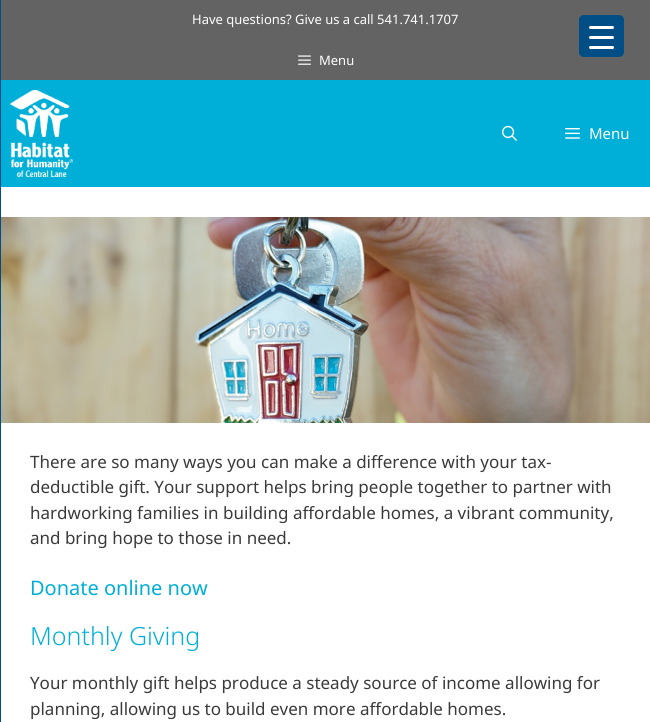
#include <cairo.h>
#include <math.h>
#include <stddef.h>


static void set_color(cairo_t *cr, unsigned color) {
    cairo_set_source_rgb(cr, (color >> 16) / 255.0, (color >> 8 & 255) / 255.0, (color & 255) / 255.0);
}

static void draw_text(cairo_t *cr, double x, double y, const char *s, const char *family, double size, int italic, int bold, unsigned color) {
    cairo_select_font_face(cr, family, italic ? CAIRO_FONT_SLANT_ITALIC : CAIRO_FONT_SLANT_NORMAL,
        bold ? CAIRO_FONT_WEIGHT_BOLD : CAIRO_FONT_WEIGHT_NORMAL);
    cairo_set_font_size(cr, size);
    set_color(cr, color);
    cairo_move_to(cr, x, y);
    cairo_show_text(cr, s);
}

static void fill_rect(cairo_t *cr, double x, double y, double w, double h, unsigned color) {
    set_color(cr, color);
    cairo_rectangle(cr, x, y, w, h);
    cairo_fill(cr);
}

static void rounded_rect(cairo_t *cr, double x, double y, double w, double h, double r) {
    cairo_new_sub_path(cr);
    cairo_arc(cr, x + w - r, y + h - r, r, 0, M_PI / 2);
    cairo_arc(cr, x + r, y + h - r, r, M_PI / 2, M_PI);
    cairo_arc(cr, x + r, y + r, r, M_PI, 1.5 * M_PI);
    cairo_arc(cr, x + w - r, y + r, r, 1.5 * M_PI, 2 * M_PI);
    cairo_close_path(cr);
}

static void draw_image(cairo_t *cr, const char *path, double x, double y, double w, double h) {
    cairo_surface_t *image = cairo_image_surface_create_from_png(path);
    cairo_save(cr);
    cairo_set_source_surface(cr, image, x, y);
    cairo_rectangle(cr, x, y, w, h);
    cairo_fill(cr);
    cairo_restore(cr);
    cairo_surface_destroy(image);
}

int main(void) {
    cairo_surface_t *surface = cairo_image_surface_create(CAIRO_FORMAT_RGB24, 650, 722);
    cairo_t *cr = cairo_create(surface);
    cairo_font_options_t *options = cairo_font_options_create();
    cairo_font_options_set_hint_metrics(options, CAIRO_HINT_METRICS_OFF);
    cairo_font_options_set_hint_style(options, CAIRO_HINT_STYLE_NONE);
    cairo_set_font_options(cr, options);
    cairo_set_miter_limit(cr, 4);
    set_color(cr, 0xFFFFFF);
    cairo_paint(cr);
    fill_rect(cr, 0, 0, 1, 722, 0x014E87);
    fill_rect(cr, 1, 0, 649, 80, 0x636363);
    draw_text(cr, 192, 24, "Have questions? Give us a call 541.741.1707", "Noto Sans", 13, 0, 0, 0xFFFFFF);
    set_color(cr, 0x014E87);
    rounded_rect(cr, 579, 15, 45, 42, 5);
    cairo_fill(cr);
    set_color(cr, 0xFFFFFF);
    rounded_rect(cr, 589, 36, 25, 3, 1.5);
    cairo_fill(cr);
    rounded_rect(cr, 589, 26, 25, 3, 1.5);
    cairo_fill(cr);
    rounded_rect(cr, 589, 46, 25, 3, 1.5);
    cairo_fill(cr);
    draw_image(cr, "assets/img1.png", 298, 55, 13, 10);
    draw_text(cr, 319, 65, "Menu", "Noto Sans", 13, 0, 0, 0xFFFFFF);
    fill_rect(cr, 1, 80, 649, 107, 0x00AFD7);
    draw_image(cr, "assets/img2.png", 10, 90, 63, 87);
    draw_image(cr, "assets/img3.png", 502, 125, 15, 16);
    draw_image(cr, "assets/img4.png", 565, 128, 15, 11);
    draw_text(cr, 589, 139, "Menu", "Noto Sans", 15, 0, 0, 0xFFFFFF);
    draw_image(cr, "assets/img5.png", 1, 217, 649, 206);
    draw_text(cr, 30, 468, "There are so many ways you can make a difference with your tax-", "Noto Sans", 17, 0, 0, 0x3A3A3A);
    draw_text(cr, 30, 493, "deductible gift. Your support helps bring people together to partner with", "Noto Sans", 17, 0, 0, 0x3A3A3A);
    draw_text(cr, 30, 519, "hardworking families in building affordable homes, a vibrant community,", "Noto Sans", 17, 0, 0, 0x3A3A3A);
    draw_text(cr, 30, 544, "and bring hope to those in need.", "Noto Sans", 17, 0, 0, 0x3A3A3A);
    draw_text(cr, 30, 595, "Donate online now", "Noto Sans", 20, 0, 0, 0x00AFD7);
    draw_text(cr, 30, 645, "Monthly Giving", "Noto Sans Light", 25, 0, 0, 0x00AFD7);
    draw_text(cr, 30, 689, "Your monthly gift helps produce a steady source of income allowing for", "Noto Sans", 17, 0, 0, 0x3A3A3A);
    draw_text(cr, 30, 715, "planning, allowing us to build even more affordable homes.", "Noto Sans", 17, 0, 0, 0x3A3A3A);
    cairo_surface_write_to_png(surface, "output.png");
    cairo_font_options_destroy(options);
    cairo_destroy(cr);
    cairo_surface_destroy(surface);
    return 0;
}
